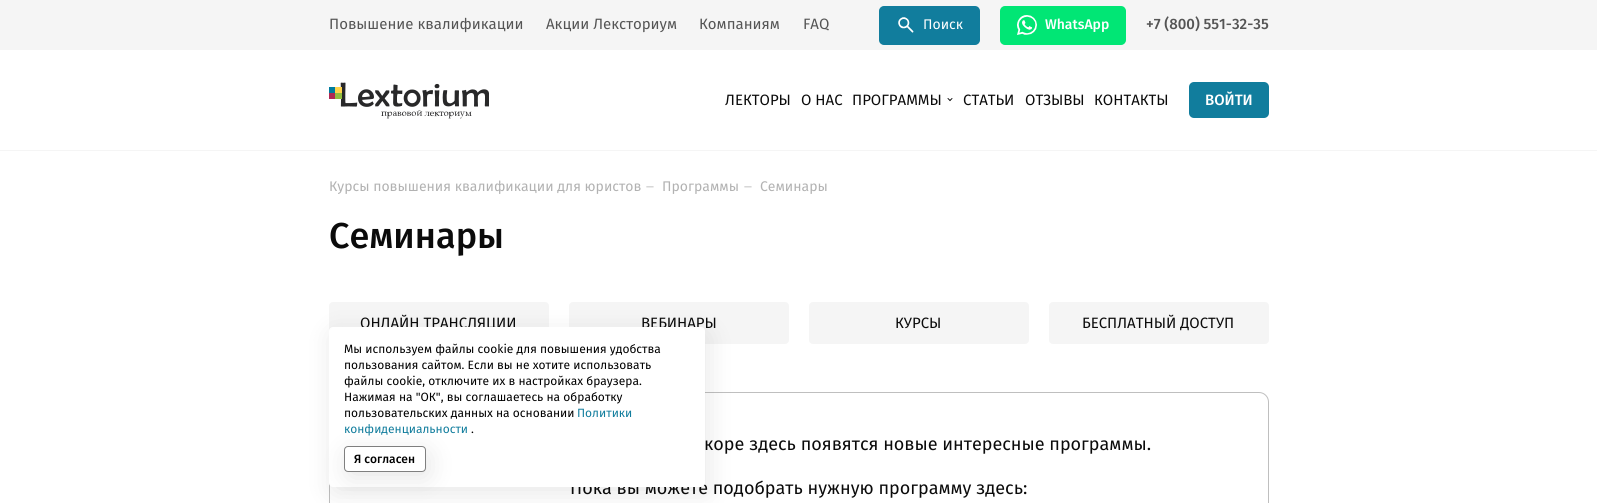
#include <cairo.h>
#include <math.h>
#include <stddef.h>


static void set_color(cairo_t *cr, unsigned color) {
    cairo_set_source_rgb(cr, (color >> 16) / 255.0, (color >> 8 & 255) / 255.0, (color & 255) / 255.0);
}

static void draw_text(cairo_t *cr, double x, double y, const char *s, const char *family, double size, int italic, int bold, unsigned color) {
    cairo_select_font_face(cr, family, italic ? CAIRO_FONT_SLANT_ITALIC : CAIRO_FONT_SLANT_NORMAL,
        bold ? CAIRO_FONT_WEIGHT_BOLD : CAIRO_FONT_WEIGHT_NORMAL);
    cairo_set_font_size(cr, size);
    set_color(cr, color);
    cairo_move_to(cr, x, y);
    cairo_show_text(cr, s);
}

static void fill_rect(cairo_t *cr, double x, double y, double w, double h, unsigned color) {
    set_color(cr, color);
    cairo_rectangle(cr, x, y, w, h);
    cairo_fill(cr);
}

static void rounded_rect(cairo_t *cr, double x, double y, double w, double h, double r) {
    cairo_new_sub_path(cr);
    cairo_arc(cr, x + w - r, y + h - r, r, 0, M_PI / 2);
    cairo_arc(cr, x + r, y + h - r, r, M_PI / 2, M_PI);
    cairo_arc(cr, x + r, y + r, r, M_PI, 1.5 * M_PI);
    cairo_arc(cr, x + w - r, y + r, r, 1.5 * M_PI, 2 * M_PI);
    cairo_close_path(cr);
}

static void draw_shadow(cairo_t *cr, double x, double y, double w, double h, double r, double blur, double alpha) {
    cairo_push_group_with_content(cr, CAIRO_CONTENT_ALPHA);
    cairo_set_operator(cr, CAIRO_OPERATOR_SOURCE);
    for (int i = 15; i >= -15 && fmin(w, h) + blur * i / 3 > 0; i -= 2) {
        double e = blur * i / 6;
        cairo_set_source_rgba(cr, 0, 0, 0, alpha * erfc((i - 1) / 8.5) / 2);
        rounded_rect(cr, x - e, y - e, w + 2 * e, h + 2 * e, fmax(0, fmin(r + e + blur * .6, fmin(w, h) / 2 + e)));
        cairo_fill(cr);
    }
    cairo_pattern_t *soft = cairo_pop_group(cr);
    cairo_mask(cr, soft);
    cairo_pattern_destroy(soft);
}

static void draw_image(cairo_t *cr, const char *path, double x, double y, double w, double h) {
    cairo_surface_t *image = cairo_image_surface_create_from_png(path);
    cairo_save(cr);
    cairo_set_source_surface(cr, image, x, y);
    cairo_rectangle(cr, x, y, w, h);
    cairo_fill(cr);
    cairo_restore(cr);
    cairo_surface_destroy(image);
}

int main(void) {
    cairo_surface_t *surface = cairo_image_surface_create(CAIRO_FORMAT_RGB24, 1597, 503);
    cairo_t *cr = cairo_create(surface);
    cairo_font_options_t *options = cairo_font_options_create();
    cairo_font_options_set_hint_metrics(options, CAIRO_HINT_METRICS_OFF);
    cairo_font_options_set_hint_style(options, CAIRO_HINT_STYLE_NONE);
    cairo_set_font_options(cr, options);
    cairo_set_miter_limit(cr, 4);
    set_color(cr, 0xFFFFFF);
    cairo_paint(cr);
    fill_rect(cr, 0, 150, 1597, 1, 0xF5F5F5);
    fill_rect(cr, 0, 0, 1597, 50, 0xF5F5F5);
    draw_text(cr, 329, 29, "Повышение квалификации", "Fira Sans", 15, 0, 0, 0x555555);
    draw_text(cr, 546, 29, "Акции Лексториум", "Fira Sans", 15, 0, 0, 0x555555);
    draw_text(cr, 699, 29, "Компаниям", "Fira Sans", 15, 0, 0, 0x555555);
    draw_text(cr, 803, 29, "FAQ", "Fira Sans", 15, 0, 0, 0x555555);
    set_color(cr, 0x117D9D);
    rounded_rect(cr, 880, 7, 99, 37, 4);
    cairo_fill_preserve(cr);
    cairo_stroke(cr);
    draw_image(cr, "assets/img1.png", 898, 17, 16, 16);
    draw_text(cr, 923, 29, "Поиск", "Fira Sans", 14, 0, 0, 0xFFFFFF);
    set_color(cr, 0x01E675);
    rounded_rect(cr, 1001, 7, 124, 37, 4);
    cairo_fill_preserve(cr);
    cairo_stroke(cr);
    draw_image(cr, "assets/img2.png", 1017, 15, 20, 20);
    draw_text(cr, 1045, 29, "WhatsApp", "Fira Sans Medium", 14, 0, 0, 0xFFFFFF);
    draw_text(cr, 1146, 29, "+7 (800) 551-32-35", "Fira Sans Medium", 15, 0, 0, 0x555555);
    draw_image(cr, "assets/img3.png", 329, 82, 160, 37);
    draw_text(cr, 725, 105, "ЛЕКТОРЫ", "Fira Sans", 15, 0, 0, 0x0B0B0B);
    draw_text(cr, 801, 105, "О НАС", "Fira Sans", 15, 0, 0, 0x0B0B0B);
    draw_text(cr, 852, 105, "ПРОГРАММЫ", "Fira Sans", 15, 0, 0, 0x0B0B0B);
    draw_image(cr, "assets/img4.png", 947, 98, 6, 4);
    draw_text(cr, 963, 105, "СТАТЬИ", "Fira Sans", 15, 0, 0, 0x0B0B0B);
    draw_text(cr, 1025, 105, "ОТЗЫВЫ", "Fira Sans", 15, 0, 0, 0x0B0B0B);
    draw_text(cr, 1094, 105, "КОНТАКТЫ", "Fira Sans", 15, 0, 0, 0x0B0B0B);
    set_color(cr, 0x117D9D);
    rounded_rect(cr, 1189, 82, 80, 36, 5);
    cairo_fill(cr);
    draw_text(cr, 1205, 105, "ВОЙТИ", "Fira Sans Medium", 15, 0, 0, 0xFFFFFF);
    draw_text(cr, 329, 191, "Курсы повышения квалификации для юристов", "Fira Sans", 14, 0, 0, 0xB2B2B2);
    draw_text(cr, 646, 190, "—", "Fira Sans", 10, 0, 0, 0xB2B2B2);
    draw_text(cr, 662, 191, "Программы", "Fira Sans", 14, 0, 0, 0xB2B2B2);
    draw_text(cr, 744, 190, "—", "Fira Sans", 10, 0, 0, 0xB2B2B2);
    draw_text(cr, 760, 191, "Семинары", "Fira Sans", 14, 0, 0, 0xB2B2B2);
    draw_text(cr, 329, 248, "Семинары", "Fira Sans Medium", 36, 0, 0, 0x0B0B0B);
    set_color(cr, 0xF5F5F5);
    rounded_rect(cr, 329, 302, 220, 42, 4);
    cairo_fill(cr);
    draw_text(cr, 360, 328, "ОНЛАЙН ТРАНСЛЯЦИИ", "Fira Sans", 15, 0, 0, 0x0B0B0B);
    set_color(cr, 0xF5F5F5);
    rounded_rect(cr, 569, 302, 220, 42, 4);
    cairo_fill(cr);
    draw_text(cr, 641, 328, "ВЕБИНАРЫ", "Fira Sans", 15, 0, 0, 0x0B0B0B);
    set_color(cr, 0xF5F5F5);
    rounded_rect(cr, 809, 302, 220, 42, 4);
    cairo_fill(cr);
    draw_text(cr, 895, 328, "КУРСЫ", "Fira Sans", 15, 0, 0, 0x0B0B0B);
    set_color(cr, 0xF5F5F5);
    rounded_rect(cr, 1049, 302, 220, 42, 4);
    cairo_fill(cr);
    draw_text(cr, 1082, 328, "БЕСПЛАТНЫЙ ДОСТУП", "Fira Sans", 15, 0, 0, 0x0B0B0B);
    rounded_rect(cr, 329.5, 392.5, 939, 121, 9.5);
    set_color(cr, 0xBFBFBF);
    cairo_set_line_width(cr, 1);
    cairo_stroke(cr);
    draw_text(cr, 704, 450, "коре здесь появятся новые интересные программы.", "Fira Sans", 18, 0, 0, 0x0B0B0B);
    draw_text(cr, 570, 494, "Пока вы можете подобрать нужную программу здесь:", "Fira Sans", 18, 0, 0, 0x0B0B0B);
    set_color(cr, 0x0B0B0B);
    draw_shadow(cr, 332, 333, 376, 160, 4, 12.5, 0.1);
    set_color(cr, 0xFFFFFF);
    rounded_rect(cr, 329.5, 327.5, 375, 159, 3.5);
    cairo_fill_preserve(cr);
    cairo_stroke(cr);
    draw_text(cr, 344, 353, "Мы используем файлы cookie для повышения удобства", "Fira Sans", 12, 0, 0, 0x000000);
    draw_text(cr, 344, 369, "пользования сайтом. Если вы не хотите использовать", "Fira Sans", 12, 0, 0, 0x000000);
    draw_text(cr, 344, 385, "файлы cookie, отключите их в настройках браузера.", "Fira Sans", 12, 0, 0, 0x000000);
    draw_text(cr, 344, 401, "Нажимая на \"ОК\", вы соглашаетесь на обработку", "Fira Sans", 12, 0, 0, 0x000000);
    draw_text(cr, 344, 417, "пользовательских данных на основании", "Fira Sans", 12, 0, 0, 0x000000);
    draw_text(cr, 577, 417, "Политики", "Fira Sans", 12, 0, 0, 0x117D9D);
    draw_text(cr, 344, 433, "конфиденциальности", "Fira Sans", 12, 0, 0, 0x117D9D);
    draw_text(cr, 471, 433, ".", "Fira Sans", 12, 0, 0, 0x000000);
    cairo_save(cr);
    cairo_set_fill_rule(cr, CAIRO_FILL_RULE_EVEN_ODD);
    cairo_new_path(cr);
    cairo_move_to(cr, 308, 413);
    cairo_line_to(cr, 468, 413);
    cairo_line_to(cr, 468, 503);
    cairo_line_to(cr, 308, 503);
    cairo_close_path(cr);
    cairo_move_to(cr, 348, 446);
    cairo_line_to(cr, 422, 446);
    cairo_curve_to(cr, 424, 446, 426, 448, 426, 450);
    cairo_line_to(cr, 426, 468);
    cairo_curve_to(cr, 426, 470, 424, 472, 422, 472);
    cairo_line_to(cr, 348, 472);
    cairo_curve_to(cr, 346, 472, 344, 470, 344, 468);
    cairo_line_to(cr, 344, 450);
    cairo_curve_to(cr, 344, 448, 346, 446, 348, 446);
    cairo_close_path(cr);
    cairo_clip(cr);
    set_color(cr, 0x000000);
    draw_shadow(cr, 347, 452, 82, 26, 4, 12.5, 0.1);
    cairo_restore(cr);
    rounded_rect(cr, 344.5, 446.5, 81, 25, 3.5);
    cairo_set_source_rgba(cr, 0, 0, 0, 0.5);
    cairo_stroke(cr);
    draw_text(cr, 354, 463, "Я согласен", "Fira Sans Medium", 12, 0, 0, 0x000000);
    cairo_surface_write_to_png(surface, "output.png");
    cairo_font_options_destroy(options);
    cairo_destroy(cr);
    cairo_surface_destroy(surface);
    return 0;
}
